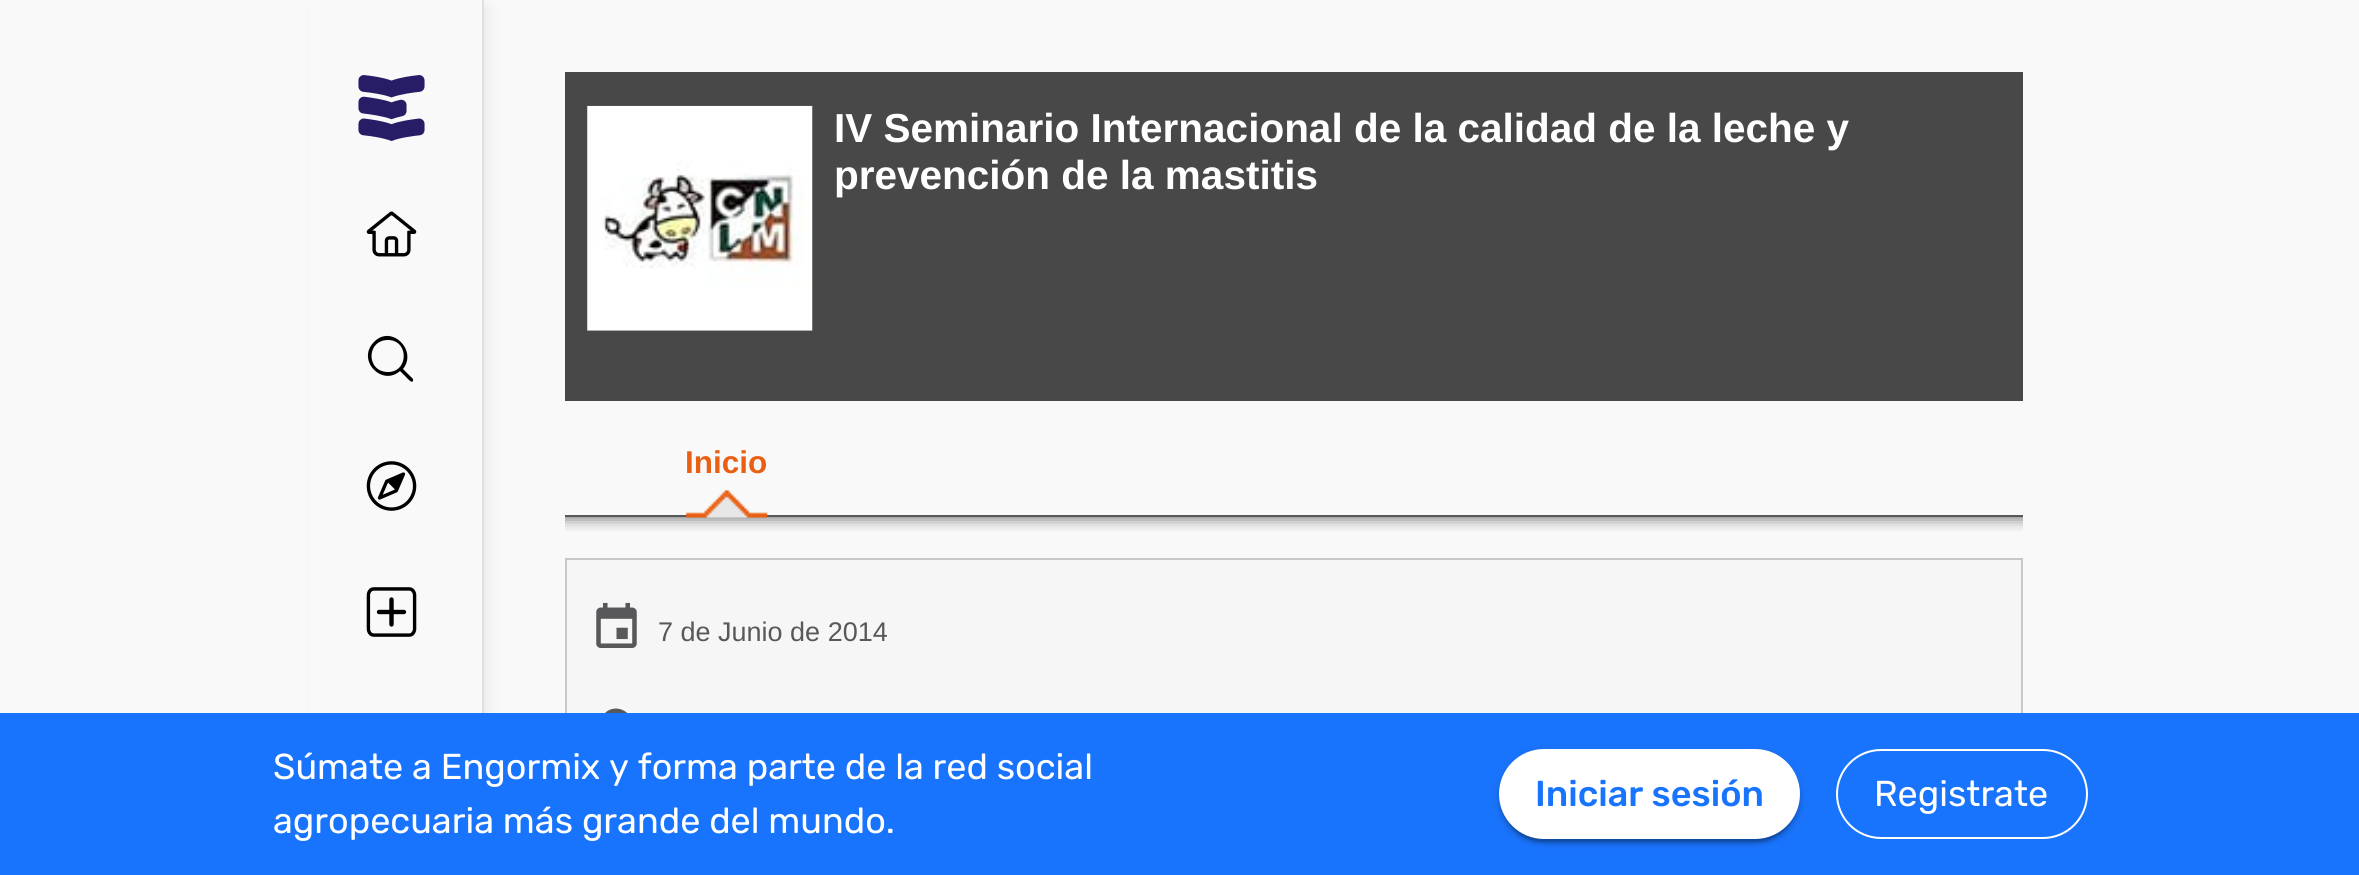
#include <cairo.h>
#include <math.h>
#include <stddef.h>


static void set_color(cairo_t *cr, unsigned color) {
    cairo_set_source_rgb(cr, (color >> 16) / 255.0, (color >> 8 & 255) / 255.0, (color & 255) / 255.0);
}

static void draw_text(cairo_t *cr, double x, double y, const char *s, const char *family, double size, int italic, int bold, unsigned color) {
    cairo_select_font_face(cr, family, italic ? CAIRO_FONT_SLANT_ITALIC : CAIRO_FONT_SLANT_NORMAL,
        bold ? CAIRO_FONT_WEIGHT_BOLD : CAIRO_FONT_WEIGHT_NORMAL);
    cairo_set_font_size(cr, size);
    set_color(cr, color);
    cairo_move_to(cr, x, y);
    cairo_show_text(cr, s);
}

static void fill_rect(cairo_t *cr, double x, double y, double w, double h, unsigned color) {
    set_color(cr, color);
    cairo_rectangle(cr, x, y, w, h);
    cairo_fill(cr);
}

static void rounded_rect(cairo_t *cr, double x, double y, double w, double h, double r) {
    cairo_new_sub_path(cr);
    cairo_arc(cr, x + w - r, y + h - r, r, 0, M_PI / 2);
    cairo_arc(cr, x + r, y + h - r, r, M_PI / 2, M_PI);
    cairo_arc(cr, x + r, y + r, r, M_PI, 1.5 * M_PI);
    cairo_arc(cr, x + w - r, y + r, r, 1.5 * M_PI, 2 * M_PI);
    cairo_close_path(cr);
}

static void draw_shadow(cairo_t *cr, double x, double y, double w, double h, double r, double blur, double alpha) {
    cairo_push_group_with_content(cr, CAIRO_CONTENT_ALPHA);
    cairo_set_operator(cr, CAIRO_OPERATOR_SOURCE);
    for (int i = 15; i >= -15 && fmin(w, h) + blur * i / 3 > 0; i -= 2) {
        double e = blur * i / 6;
        cairo_set_source_rgba(cr, 0, 0, 0, alpha * erfc((i - 1) / 8.5) / 2);
        rounded_rect(cr, x - e, y - e, w + 2 * e, h + 2 * e, fmax(0, fmin(r + e + blur * .6, fmin(w, h) / 2 + e)));
        cairo_fill(cr);
    }
    cairo_pattern_t *soft = cairo_pop_group(cr);
    cairo_mask(cr, soft);
    cairo_pattern_destroy(soft);
}

static void draw_image(cairo_t *cr, const char *path, double x, double y, double w, double h) {
    cairo_surface_t *image = cairo_image_surface_create_from_png(path);
    cairo_save(cr);
    cairo_set_source_surface(cr, image, x, y);
    cairo_rectangle(cr, x, y, w, h);
    cairo_fill(cr);
    cairo_restore(cr);
    cairo_surface_destroy(image);
}

int main(void) {
    cairo_surface_t *surface = cairo_image_surface_create(CAIRO_FORMAT_RGB24, 2359, 875);
    cairo_t *cr = cairo_create(surface);
    cairo_font_options_t *options = cairo_font_options_create();
    cairo_font_options_set_hint_metrics(options, CAIRO_HINT_METRICS_OFF);
    cairo_font_options_set_hint_style(options, CAIRO_HINT_STYLE_NONE);
    cairo_set_font_options(cr, options);
    cairo_set_miter_limit(cr, 4);
    set_color(cr, 0xF9F9F9);
    cairo_paint(cr);
    fill_rect(cr, 565, 72, 1458, 329, 0x484848);
    draw_image(cr, "assets/img1.png", 587, 105, 226, 226);
    draw_text(cr, 834, 142, "IV Seminario Internacional de la calidad de la leche y", "Liberation Sans", 40.5, 0, 1, 0xFFFFFF);
    draw_text(cr, 834, 189, "prevención de la mastitis", "Liberation Sans", 40.5, 0, 1, 0xFFFFFF);
    cairo_save(cr);
    cairo_rectangle(cr, 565, 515, 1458, 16);
    cairo_clip(cr);
    set_color(cr, 0x58585A);
    draw_shadow(cr, 565, 515, 1458, 2, 0, 8, 1);
    cairo_restore(cr);
    fill_rect(cr, 565, 515, 1458, 2, 0x58585A);
    draw_image(cr, "assets/img2.png", 686, 490, 82, 28);
    draw_text(cr, 685, 473, "Inicio", "Liberation Sans", 31.5, 0, 1, 0xE96014);
    fill_rect(cr, 567, 560, 1454, 153, 0xF6F6F6);
    cairo_rectangle(cr, 566, 559, 1456, 241);
    set_color(cr, 0xC8C8C8);
    cairo_stroke(cr);
    draw_image(cr, "assets/img3.png", 596, 602, 41, 46);
    draw_text(cr, 658, 641, "7 de Junio de 2014", "Liberation Sans", 27, 0, 0, 0x58585A);
    cairo_new_path(cr);
    cairo_move_to(cr, 613, 728);
    cairo_curve_to(cr, 618, 734, 626, 726, 620, 721);
    cairo_curve_to(cr, 615, 715, 607, 723, 613, 728);
    cairo_close_path(cr);
    cairo_move_to(cr, 605, 713);
    cairo_curve_to(cr, 615, 703, 633, 711, 632, 725);
    cairo_curve_to(cr, 632, 735, 623, 747, 616, 754);
    cairo_curve_to(cr, 608, 744, 593, 725, 605, 713);
    cairo_close_path(cr);
    cairo_fill(cr);
    set_color(cr, 0x000000);
    draw_shadow(cr, 322, 9, 162, 857, 0, 9, 0.1);
    fill_rect(cr, 311, 0, 171, 713, 0xF9F9F9);
    fill_rect(cr, 482, 0, 2, 713, 0xDFDFDF);
    draw_image(cr, "assets/img4.png", 358, 75, 67, 66);
    draw_image(cr, "assets/img5.png", 366, 211, 51, 46);
    set_color(cr, 0x000000);
    cairo_new_path(cr);
    cairo_move_to(cr, 413, 379);
    cairo_line_to(cr, 403, 369);
    cairo_curve_to(cr, 418, 350, 391, 324, 374, 342);
    cairo_curve_to(cr, 356, 360, 382, 387, 400, 371);
    cairo_line_to(cr, 407, 378);
    cairo_curve_to(cr, 407, 378, 413, 385, 413, 380);
    cairo_close_path(cr);
    cairo_move_to(cr, 388, 372);
    cairo_curve_to(cr, 366, 372, 366, 340, 388, 340);
    cairo_curve_to(cr, 409, 340, 409, 372, 388, 372);
    cairo_close_path(cr);
    cairo_fill(cr);
    draw_image(cr, "assets/img6.png", 366, 461, 51, 50);
    draw_image(cr, "assets/img7.png", 366, 587, 51, 50);
    fill_rect(cr, 0, 713, 2359, 162, 0x1974FD);
    draw_text(cr, 273, 779, "Súmate a Engormix y forma parte de la red social", "Rubik", 36, 0, 0, 0xFFFFFF);
    draw_text(cr, 273, 833, "agropecuaria más grande del mundo.", "Rubik", 36, 0, 0, 0xFFFFFF);
    set_color(cr, 0x000000);
    draw_shadow(cr, 1499, 752, 301, 90, 45, 5.5, 0.12);
    draw_shadow(cr, 1499, 754, 301, 90, 45, 2, 0.14);
    draw_shadow(cr, 1503, 761, 293, 81, 40.5, 1, 0.2);
    set_color(cr, 0xFFFFFF);
    rounded_rect(cr, 1499, 749, 301, 90, 45);
    cairo_fill(cr);
    draw_text(cr, 1535, 806, "Iniciar sesión", "Rubik Medium", 36, 0, 0, 0x1974FD);
    rounded_rect(cr, 1837, 750, 250, 88, 44);
    set_color(cr, 0xFFFFFF);
    cairo_stroke(cr);
    draw_text(cr, 1874, 806, "Registrate", "Rubik", 36, 0, 0, 0xFFFFFF);
    cairo_surface_write_to_png(surface, "output.png");
    cairo_font_options_destroy(options);
    cairo_destroy(cr);
    cairo_surface_destroy(surface);
    return 0;
}
